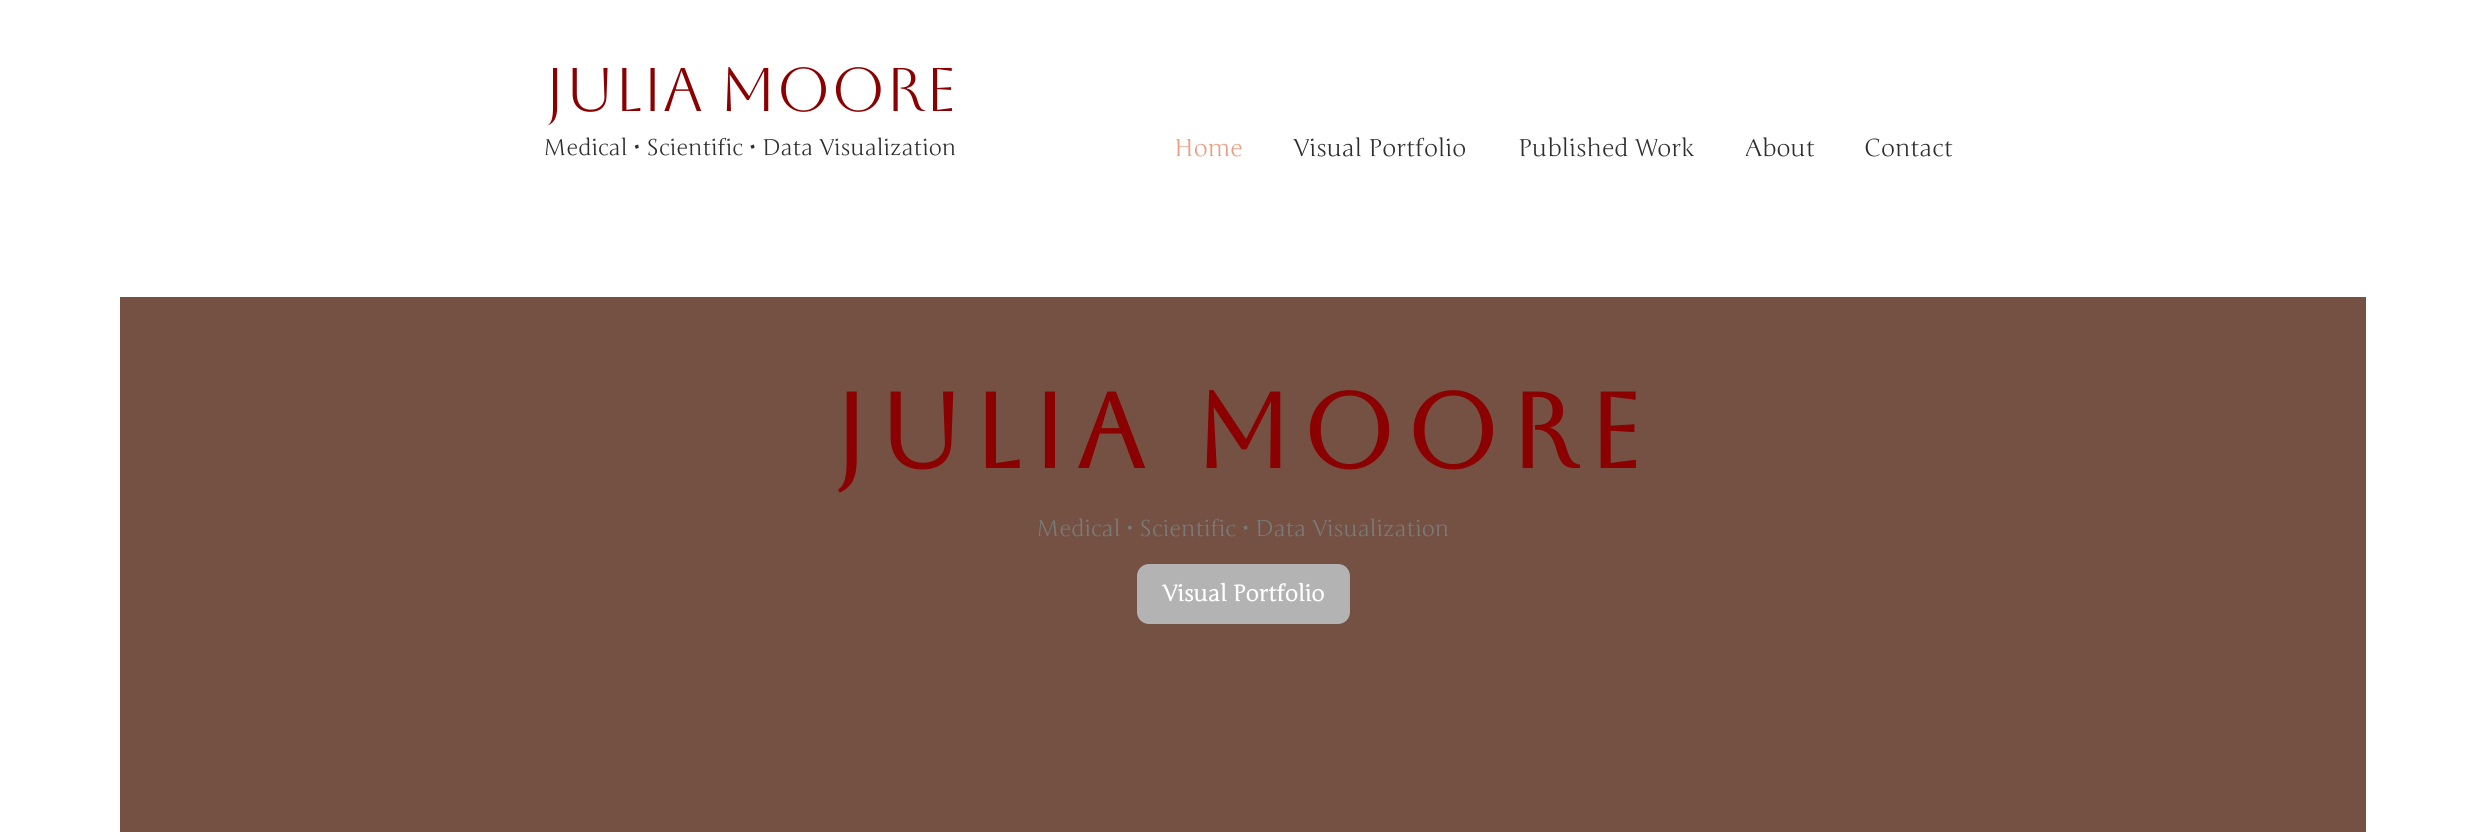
#include <cairo.h>
#include <math.h>
#include <stddef.h>


static void set_color(cairo_t *cr, unsigned color) {
    cairo_set_source_rgb(cr, (color >> 16) / 255.0, (color >> 8 & 255) / 255.0, (color & 255) / 255.0);
}

static void draw_text(cairo_t *cr, double x, double y, const char *s, const char *family, double size, int italic, int bold, unsigned color) {
    cairo_select_font_face(cr, family, italic ? CAIRO_FONT_SLANT_ITALIC : CAIRO_FONT_SLANT_NORMAL,
        bold ? CAIRO_FONT_WEIGHT_BOLD : CAIRO_FONT_WEIGHT_NORMAL);
    cairo_set_font_size(cr, size);
    set_color(cr, color);
    cairo_move_to(cr, x, y);
    cairo_show_text(cr, s);
}

static void draw_spaced(cairo_t *cr, double x, double y, const char *s, double letter, double word) {
    cairo_move_to(cr, x, y);
    while (*s) {
        char ch[5] = {0};
        int n = 0;
        do ch[n++] = *s++; while ((*s & 0xC0) == 0x80);
        cairo_show_text(cr, ch);
        cairo_rel_move_to(cr, letter + word * (*ch == ' '), 0);
    }
}

static void fill_rect(cairo_t *cr, double x, double y, double w, double h, unsigned color) {
    set_color(cr, color);
    cairo_rectangle(cr, x, y, w, h);
    cairo_fill(cr);
}

static void rounded_rect(cairo_t *cr, double x, double y, double w, double h, double r) {
    cairo_new_sub_path(cr);
    cairo_arc(cr, x + w - r, y + h - r, r, 0, M_PI / 2);
    cairo_arc(cr, x + r, y + h - r, r, M_PI / 2, M_PI);
    cairo_arc(cr, x + r, y + r, r, M_PI, 1.5 * M_PI);
    cairo_arc(cr, x + w - r, y + r, r, 1.5 * M_PI, 2 * M_PI);
    cairo_close_path(cr);
}

int main(void) {
    cairo_surface_t *surface = cairo_image_surface_create(CAIRO_FORMAT_RGB24, 2485, 832);
    cairo_t *cr = cairo_create(surface);
    cairo_font_options_t *options = cairo_font_options_create();
    cairo_font_options_set_hint_metrics(options, CAIRO_HINT_METRICS_OFF);
    cairo_font_options_set_hint_style(options, CAIRO_HINT_STYLE_NONE);
    cairo_set_font_options(cr, options);
    cairo_set_miter_limit(cr, 4);
    set_color(cr, 0xFFFFFF);
    cairo_paint(cr);
    draw_text(cr, 545, 111, "Julia Moore", "Aboreto", 61.5, 0, 0, 0x8B0000);
    draw_text(cr, 544, 155, "Medical • Scientific • Data Visualization", "Junge", 22.5, 0, 0, 0x2F2E2E);
    draw_text(cr, 1174, 156, "Home", "Junge", 24, 0, 0, 0xEB9C81);
    draw_text(cr, 1293, 156, "Visual Portfolio", "Junge", 24, 0, 0, 0x2F2E2E);
    draw_text(cr, 1518, 156, "Published Work", "Junge", 24, 0, 0, 0x2F2E2E);
    draw_text(cr, 1745, 156, "About", "Junge", 24, 0, 0, 0x2F2E2E);
    draw_text(cr, 1864, 156, "Contact", "Junge", 24, 0, 0, 0x2F2E2E);
    fill_rect(cr, 120, 297, 2246, 535, 0x755144);
    cairo_select_font_face(cr, "Aboreto", CAIRO_FONT_SLANT_NORMAL, CAIRO_FONT_WEIGHT_BOLD);
    cairo_set_font_size(cr, 105);
    set_color(cr, 0x8B0000);
    draw_spaced(cr, 833, 468, "Julia Moore", 10.5, 0);
    draw_text(cr, 1037, 536, "Medical • Scientific • Data Visualization", "Junge", 22.5, 0, 0, 0x7A7A7A);
    set_color(cr, 0xB3B3B3);
    rounded_rect(cr, 1137, 564, 213, 60, 12);
    cairo_fill(cr);
    draw_text(cr, 1162, 601, "Visual Portfolio", "Junge", 22.5, 0, 1, 0xFFFFFF);
    cairo_surface_write_to_png(surface, "output.png");
    cairo_font_options_destroy(options);
    cairo_destroy(cr);
    cairo_surface_destroy(surface);
    return 0;
}
